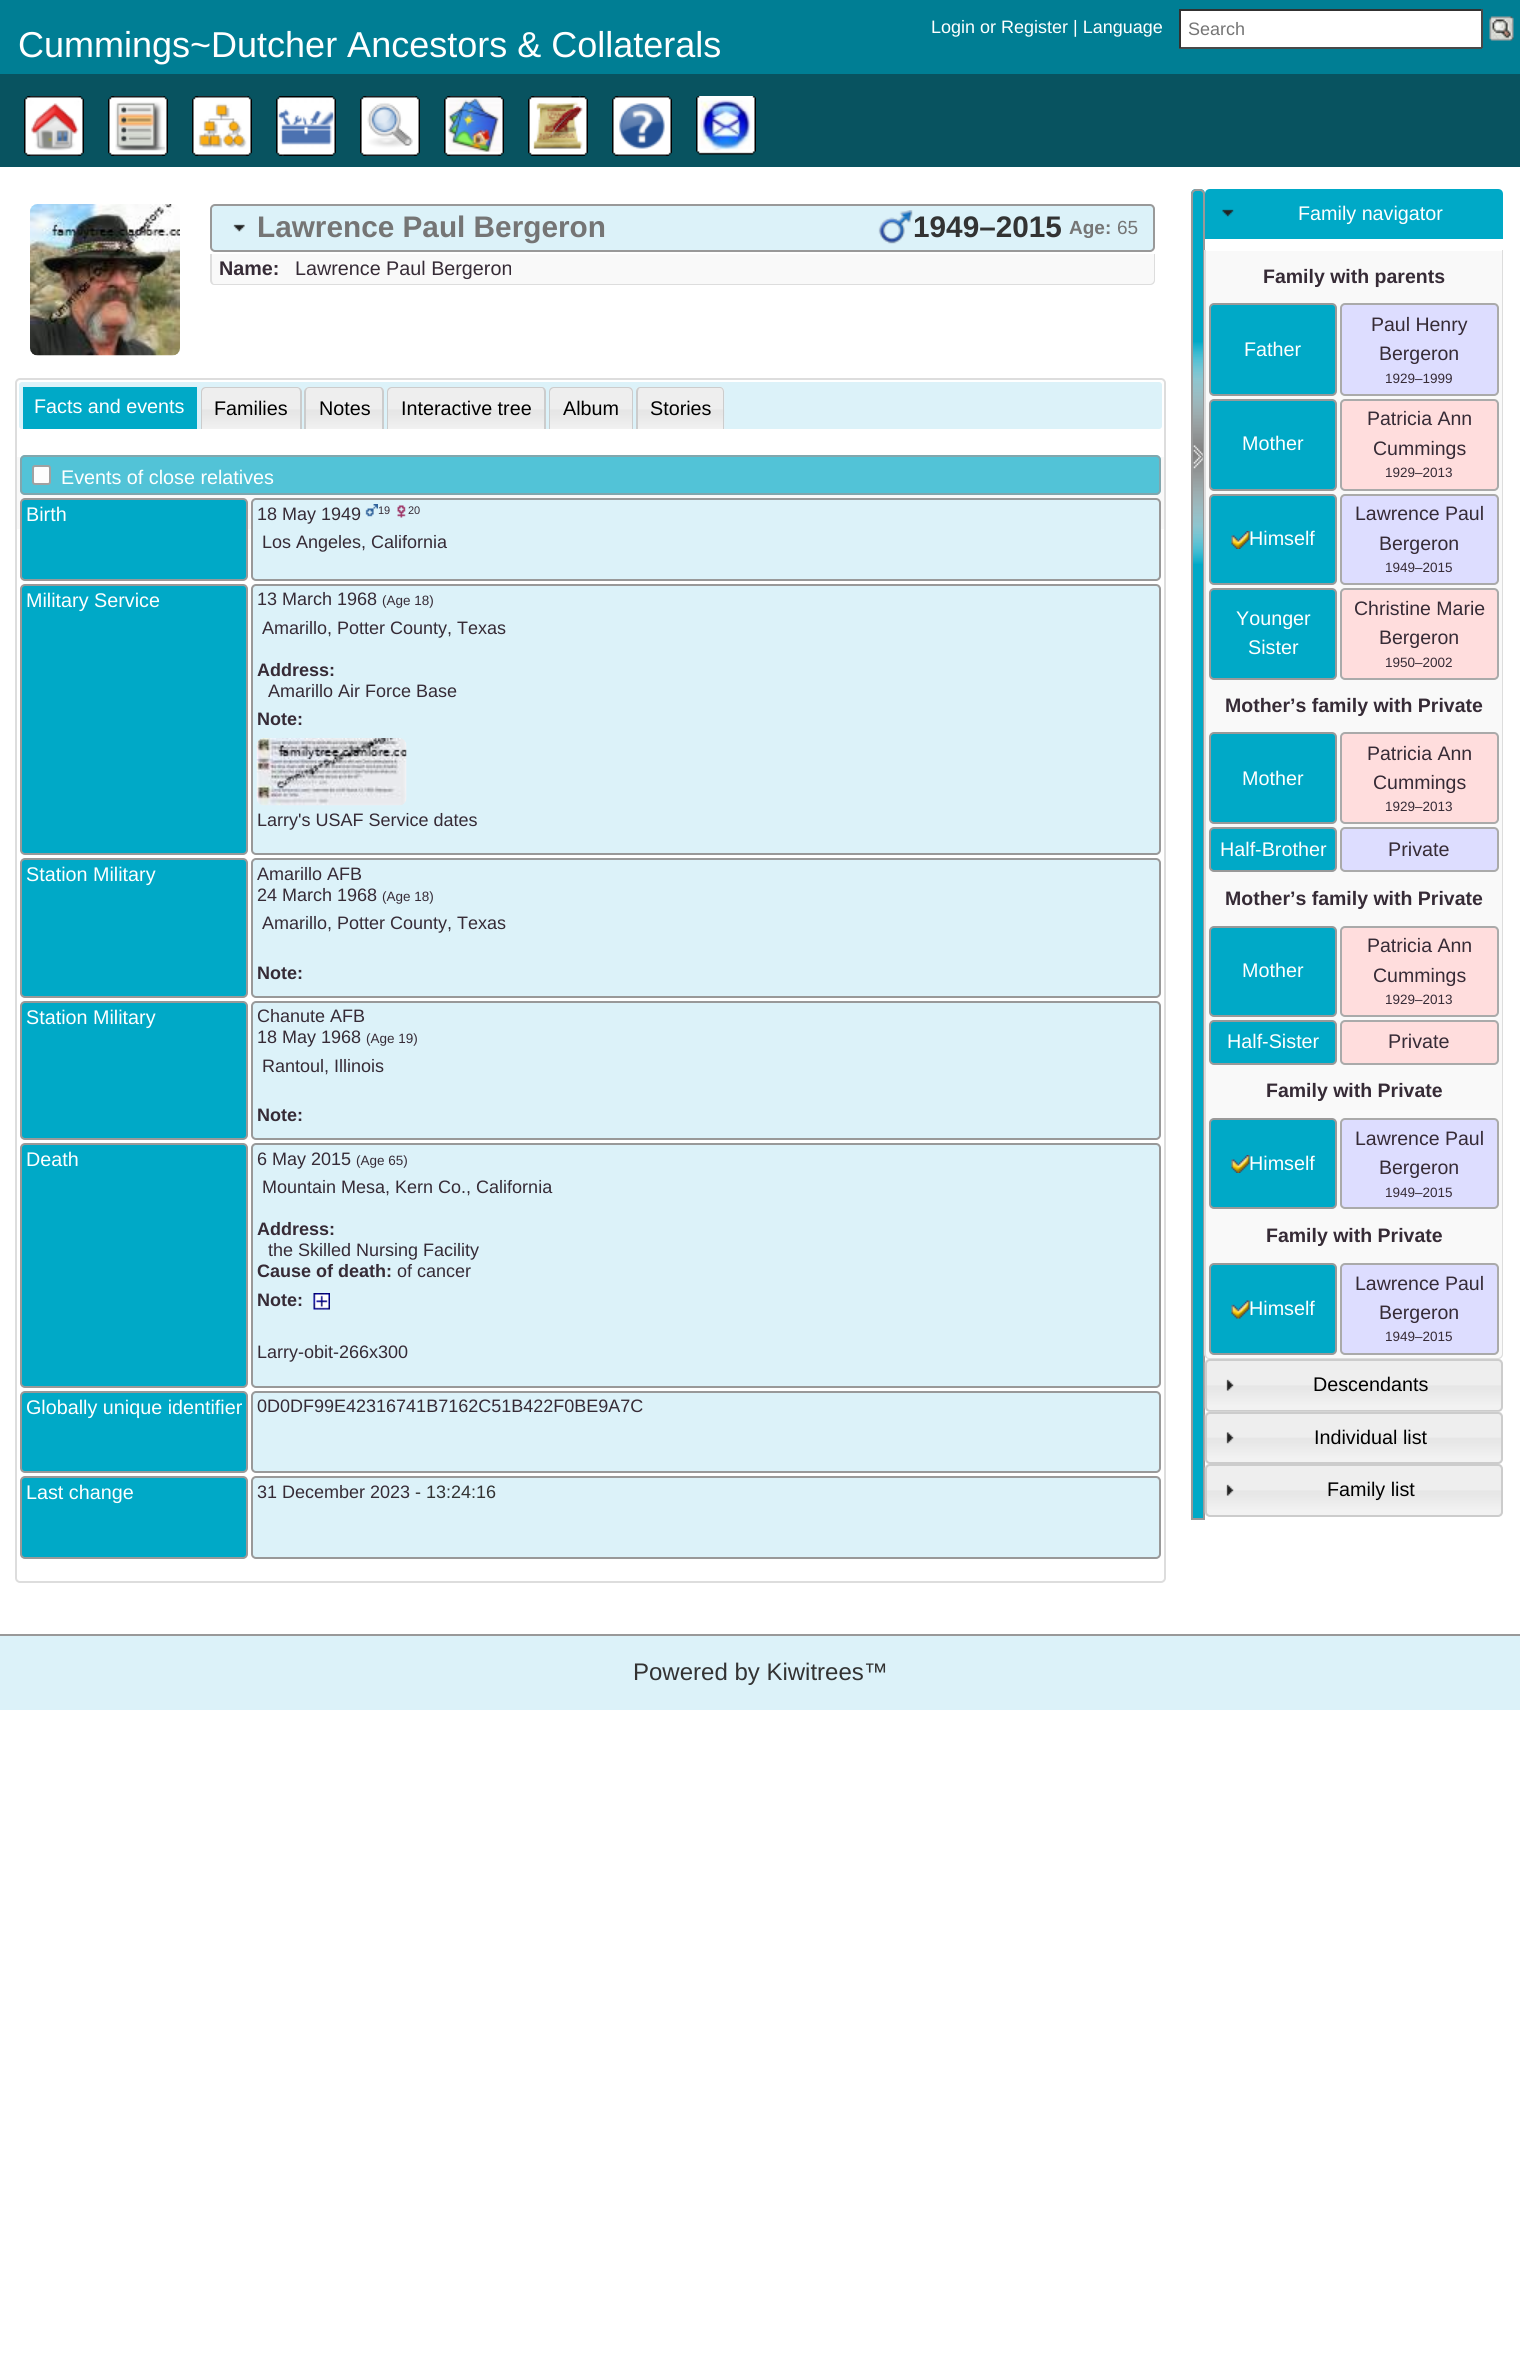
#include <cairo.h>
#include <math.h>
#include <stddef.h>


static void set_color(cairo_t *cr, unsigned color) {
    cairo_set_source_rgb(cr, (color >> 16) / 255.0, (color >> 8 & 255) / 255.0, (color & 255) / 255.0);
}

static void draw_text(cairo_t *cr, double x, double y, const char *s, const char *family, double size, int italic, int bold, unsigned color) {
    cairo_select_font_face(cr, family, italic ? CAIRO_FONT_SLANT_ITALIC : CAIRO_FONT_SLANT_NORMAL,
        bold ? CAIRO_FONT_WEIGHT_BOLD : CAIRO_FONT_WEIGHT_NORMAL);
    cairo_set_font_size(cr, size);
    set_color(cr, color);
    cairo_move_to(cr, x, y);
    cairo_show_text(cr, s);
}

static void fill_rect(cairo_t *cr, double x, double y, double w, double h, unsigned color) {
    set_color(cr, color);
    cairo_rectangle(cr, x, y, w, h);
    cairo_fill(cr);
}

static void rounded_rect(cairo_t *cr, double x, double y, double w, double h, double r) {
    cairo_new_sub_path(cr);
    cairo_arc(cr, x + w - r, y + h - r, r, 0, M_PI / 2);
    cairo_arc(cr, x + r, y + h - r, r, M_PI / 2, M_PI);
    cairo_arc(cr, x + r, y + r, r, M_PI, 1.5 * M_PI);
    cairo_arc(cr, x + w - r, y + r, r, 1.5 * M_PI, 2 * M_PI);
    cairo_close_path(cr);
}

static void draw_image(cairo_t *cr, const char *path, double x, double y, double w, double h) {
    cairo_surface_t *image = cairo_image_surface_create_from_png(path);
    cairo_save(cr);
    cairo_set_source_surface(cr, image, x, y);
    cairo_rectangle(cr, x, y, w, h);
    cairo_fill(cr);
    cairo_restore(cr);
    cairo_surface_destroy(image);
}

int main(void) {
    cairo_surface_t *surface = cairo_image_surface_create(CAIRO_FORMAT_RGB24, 1520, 2369);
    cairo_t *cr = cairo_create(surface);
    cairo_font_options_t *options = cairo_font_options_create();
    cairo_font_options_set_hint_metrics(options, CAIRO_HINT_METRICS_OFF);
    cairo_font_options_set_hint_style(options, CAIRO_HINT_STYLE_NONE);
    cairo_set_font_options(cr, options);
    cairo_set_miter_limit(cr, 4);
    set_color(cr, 0xFFFFFF);
    cairo_paint(cr);
    fill_rect(cr, 0, 0, 1520, 74, 0x007E94);
    draw_text(cr, 931, 33, "Login or Register | Language", "Liberation Sans", 18, 0, 0, 0xFFFFFF);
    fill_rect(cr, 1181, 11, 300, 36, 0xFFFFFF);
    fill_rect(cr, 1179, 9, 303, 2, 0x313131);
    fill_rect(cr, 1481, 9, 2, 39, 0x494949);
    fill_rect(cr, 1179, 47, 303, 2, 0x494949);
    fill_rect(cr, 1179, 9, 2, 39, 0x313131);
    draw_text(cr, 1188, 35, "Search", "Liberation Sans", 18, 0, 0, 0x757575);
    draw_image(cr, "assets/img1.png", 1489, 16, 25, 25);
    draw_text(cr, 18, 57, "Cummings~Dutcher Ancestors & Collaterals", "Liberation Sans", 36, 0, 0, 0xFFFFFF);
    fill_rect(cr, 0, 74, 1520, 93, 0x085360);
    draw_image(cr, "assets/img2.png", 24, 96, 60, 60);
    draw_image(cr, "assets/img3.png", 108, 96, 60, 60);
    draw_image(cr, "assets/img4.png", 192, 96, 60, 60);
    draw_image(cr, "assets/img5.png", 276, 96, 60, 60);
    draw_image(cr, "assets/img6.png", 360, 96, 60, 60);
    draw_image(cr, "assets/img7.png", 444, 96, 60, 60);
    draw_image(cr, "assets/img8.png", 528, 96, 60, 60);
    draw_image(cr, "assets/img9.png", 612, 96, 60, 60);
    draw_image(cr, "assets/img10.png", 696, 96, 60, 59);
    draw_image(cr, "assets/img11.png", 30, 204, 150, 152);
    set_color(cr, 0xDCF2F9);
    rounded_rect(cr, 211, 205, 943, 46, 4);
    cairo_fill_preserve(cr);
    set_color(cr, 0x999999);
    cairo_stroke(cr);
    draw_image(cr, "assets/img12.png", 233, 224, 12, 8);
    draw_text(cr, 257, 237, "Lawrence Paul Bergeron", "Liberation Sans", 29.75, 0, 1, 0x757575);
    draw_image(cr, "assets/img13.png", 878, 210, 35, 34);
    draw_text(cr, 913, 237, "1949–2015", "Liberation Sans", 29.75, 0, 1, 0x333333);
    draw_text(cr, 1069, 234, "Age:", "Liberation Sans", 19, 0, 1, 0x757575);
    draw_text(cr, 1117, 234, "65", "Liberation Sans", 19, 0, 0, 0x757575);
    set_color(cr, 0xF9F9F9);
    cairo_new_path(cr);
    cairo_move_to(cr, 210, 254);
    cairo_line_to(cr, 1155, 254);
    cairo_line_to(cr, 1155, 280);
    cairo_curve_to(cr, 1155, 283, 1153, 285, 1150, 285);
    cairo_line_to(cr, 215, 285);
    cairo_curve_to(cr, 212, 285, 210, 283, 210, 280);
    cairo_close_path(cr);
    cairo_fill(cr);
    set_color(cr, 0xDDDDDD);
    cairo_set_fill_rule(cr, CAIRO_FILL_RULE_EVEN_ODD);
    cairo_new_path(cr);
    cairo_move_to(cr, 210, 254);
    cairo_line_to(cr, 1155, 254);
    cairo_line_to(cr, 1155, 280);
    cairo_curve_to(cr, 1155, 283, 1153, 285, 1150, 285);
    cairo_line_to(cr, 214, 285);
    cairo_curve_to(cr, 212, 285, 210, 283, 210, 280);
    cairo_close_path(cr);
    cairo_move_to(cr, 212, 254);
    cairo_line_to(cr, 1154, 254);
    cairo_line_to(cr, 1154, 280);
    cairo_curve_to(cr, 1154, 282, 1152, 284, 1150, 284);
    cairo_line_to(cr, 214, 284);
    cairo_curve_to(cr, 213, 284, 212, 282, 212, 280);
    cairo_close_path(cr);
    cairo_fill(cr);
    draw_text(cr, 219, 275, "Name:", "Liberation Sans", 19.75, 0, 1, 0x362B36);
    draw_text(cr, 295, 275, "Lawrence Paul Bergeron", "Liberation Sans", 19.75, 0, 0, 0x362B36);
    fill_rect(cr, 17, 457, 1147, 72, 0xF9F9F9);
    rounded_rect(cr, 16, 379, 1149, 1203, 4);
    set_color(cr, 0xDDDDDD);
    cairo_stroke(cr);
    set_color(cr, 0xDCF2F9);
    rounded_rect(cr, 18, 381, 1145, 49, 4);
    cairo_fill_preserve(cr);
    set_color(cr, 0xFFFFFF);
    cairo_stroke(cr);
    fill_rect(cr, 23, 387, 174, 42, 0x00A9C7);
    draw_text(cr, 34, 413, "Facts and events", "Liberation Sans", 19.75, 0, 0, 0xFFFFFF);
    draw_image(cr, "assets/img14.png", 201, 387, 101, 42);
    set_color(cr, 0xCCCCCC);
    cairo_new_path(cr);
    cairo_move_to(cr, 206, 387);
    cairo_line_to(cr, 297, 387);
    cairo_curve_to(cr, 299, 387, 302, 389, 302, 392);
    cairo_line_to(cr, 302, 429);
    cairo_line_to(cr, 201, 429);
    cairo_line_to(cr, 201, 392);
    cairo_curve_to(cr, 201, 389, 203, 387, 206, 387);
    cairo_close_path(cr);
    cairo_move_to(cr, 206, 388);
    cairo_line_to(cr, 297, 388);
    cairo_curve_to(cr, 299, 388, 300, 390, 300, 392);
    cairo_line_to(cr, 300, 429);
    cairo_line_to(cr, 202, 429);
    cairo_line_to(cr, 202, 392);
    cairo_curve_to(cr, 202, 390, 204, 388, 206, 388);
    cairo_close_path(cr);
    cairo_fill(cr);
    draw_text(cr, 214, 415, "Families", "Liberation Sans", 19.75, 0, 0, 0x000000);
    draw_image(cr, "assets/img15.png", 304, 387, 80, 42);
    set_color(cr, 0xCCCCCC);
    cairo_new_path(cr);
    cairo_move_to(cr, 309, 387);
    cairo_line_to(cr, 380, 387);
    cairo_curve_to(cr, 382, 387, 384, 389, 384, 392);
    cairo_line_to(cr, 384, 429);
    cairo_line_to(cr, 304, 429);
    cairo_line_to(cr, 304, 392);
    cairo_curve_to(cr, 304, 389, 307, 387, 309, 387);
    cairo_close_path(cr);
    cairo_move_to(cr, 309, 388);
    cairo_line_to(cr, 380, 388);
    cairo_curve_to(cr, 381, 388, 382, 390, 382, 392);
    cairo_line_to(cr, 382, 429);
    cairo_line_to(cr, 306, 429);
    cairo_line_to(cr, 306, 392);
    cairo_curve_to(cr, 306, 390, 307, 388, 309, 388);
    cairo_close_path(cr);
    cairo_fill(cr);
    draw_text(cr, 319, 415, "Notes", "Liberation Sans", 19.75, 0, 0, 0x000000);
    draw_image(cr, "assets/img16.png", 387, 387, 159, 42);
    set_color(cr, 0xCCCCCC);
    cairo_new_path(cr);
    cairo_move_to(cr, 392, 387);
    cairo_line_to(cr, 542, 387);
    cairo_curve_to(cr, 544, 387, 546, 389, 546, 392);
    cairo_line_to(cr, 546, 429);
    cairo_line_to(cr, 387, 429);
    cairo_line_to(cr, 387, 392);
    cairo_curve_to(cr, 387, 389, 389, 387, 392, 387);
    cairo_close_path(cr);
    cairo_move_to(cr, 392, 388);
    cairo_line_to(cr, 542, 388);
    cairo_curve_to(cr, 543, 388, 544, 390, 544, 392);
    cairo_line_to(cr, 544, 429);
    cairo_line_to(cr, 388, 429);
    cairo_line_to(cr, 388, 392);
    cairo_curve_to(cr, 388, 390, 390, 388, 392, 388);
    cairo_close_path(cr);
    cairo_fill(cr);
    draw_text(cr, 401, 415, "Interactive tree", "Liberation Sans", 19.75, 0, 0, 0x000000);
    draw_image(cr, "assets/img17.png", 549, 387, 84, 42);
    set_color(cr, 0xCCCCCC);
    cairo_new_path(cr);
    cairo_move_to(cr, 554, 387);
    cairo_line_to(cr, 628, 387);
    cairo_curve_to(cr, 631, 387, 633, 389, 633, 392);
    cairo_line_to(cr, 633, 429);
    cairo_line_to(cr, 549, 429);
    cairo_line_to(cr, 549, 392);
    cairo_curve_to(cr, 549, 389, 551, 387, 554, 387);
    cairo_close_path(cr);
    cairo_move_to(cr, 554, 388);
    cairo_line_to(cr, 628, 388);
    cairo_curve_to(cr, 630, 388, 632, 390, 632, 392);
    cairo_line_to(cr, 632, 429);
    cairo_line_to(cr, 550, 429);
    cairo_line_to(cr, 550, 392);
    cairo_curve_to(cr, 550, 390, 552, 388, 554, 388);
    cairo_close_path(cr);
    cairo_fill(cr);
    draw_text(cr, 563, 415, "Album", "Liberation Sans", 19.75, 0, 0, 0x000000);
    draw_image(cr, "assets/img18.png", 636, 387, 89, 42);
    set_color(cr, 0xCCCCCC);
    cairo_new_path(cr);
    cairo_move_to(cr, 640, 387);
    cairo_line_to(cr, 720, 387);
    cairo_curve_to(cr, 722, 387, 724, 389, 724, 392);
    cairo_line_to(cr, 724, 429);
    cairo_line_to(cr, 636, 429);
    cairo_line_to(cr, 636, 392);
    cairo_curve_to(cr, 636, 389, 638, 387, 640, 387);
    cairo_close_path(cr);
    cairo_move_to(cr, 640, 388);
    cairo_line_to(cr, 720, 388);
    cairo_curve_to(cr, 722, 388, 723, 390, 723, 392);
    cairo_line_to(cr, 723, 429);
    cairo_line_to(cr, 638, 429);
    cairo_line_to(cr, 638, 392);
    cairo_curve_to(cr, 638, 390, 639, 388, 640, 388);
    cairo_close_path(cr);
    cairo_fill(cr);
    draw_text(cr, 650, 415, "Stories", "Liberation Sans", 19.75, 0, 0, 0x000000);
    cairo_set_source_rgba(cr, 0, 0.663, 0.78, 0.67);
    rounded_rect(cr, 20, 455, 1141, 40, 5);
    cairo_fill(cr);
    rounded_rect(cr, 21, 456, 1139, 38, 4);
    cairo_set_source_rgba(cr, 0.6, 0.6, 0.6, 0.67);
    cairo_stroke(cr);
    set_color(cr, 0xFDFDFD);
    rounded_rect(cr, 33, 466, 17, 18, 2);
    cairo_fill_preserve(cr);
    set_color(cr, 0xA1A1A1);
    cairo_stroke(cr);
    draw_text(cr, 61, 484, "Events of close relatives", "Liberation Sans", 19.75, 0, 0, 0xFFFFFF);
    set_color(cr, 0x00A9C7);
    rounded_rect(cr, 21, 499, 226, 81, 4);
    cairo_fill_preserve(cr);
    set_color(cr, 0x999999);
    cairo_stroke(cr);
    draw_text(cr, 26, 521, "Birth", "Liberation Sans", 19.75, 0, 0, 0xFFFFFF);
    set_color(cr, 0xDCF2F9);
    rounded_rect(cr, 252, 499, 908, 81, 4);
    cairo_fill_preserve(cr);
    set_color(cr, 0x999999);
    cairo_stroke(cr);
    draw_text(cr, 257, 520, "18 May 1949", "Liberation Sans", 18, 0, 0, 0x362B36);
    draw_image(cr, "assets/img19.png", 365, 504, 13, 13);
    draw_text(cr, 378, 514, "19", "Liberation Sans", 11, 0, 0, 0x362B36);
    draw_image(cr, "assets/img20.png", 397, 505, 9, 13);
    draw_text(cr, 408, 514, "20", "Liberation Sans", 11, 0, 0, 0x362B36);
    draw_text(cr, 262, 548, "Los Angeles, California", "Liberation Sans", 18, 0, 0, 0x362B36);
    set_color(cr, 0x00A9C7);
    rounded_rect(cr, 21, 585, 226, 269, 4);
    cairo_fill_preserve(cr);
    set_color(cr, 0x999999);
    cairo_stroke(cr);
    draw_text(cr, 26, 607, "Military Service", "Liberation Sans", 19.75, 0, 0, 0xFFFFFF);
    set_color(cr, 0xDCF2F9);
    rounded_rect(cr, 252, 585, 908, 269, 4);
    cairo_fill_preserve(cr);
    set_color(cr, 0x999999);
    cairo_stroke(cr);
    draw_text(cr, 257, 605, "13 March 1968", "Liberation Sans", 18, 0, 0, 0x362B36);
    draw_text(cr, 382, 605, "(Age 18)", "Liberation Sans", 13.5, 0, 0, 0x362B36);
    draw_text(cr, 262, 634, "Amarillo, Potter County, Texas", "Liberation Sans", 18, 0, 0, 0x362B36);
    draw_text(cr, 257, 676, "Address:", "Liberation Sans", 18, 0, 1, 0x362B36);
    draw_text(cr, 268, 697, "Amarillo Air Force Base", "Liberation Sans", 18, 0, 0, 0x362B36);
    draw_text(cr, 257, 725, "Note:", "Liberation Sans", 18, 0, 1, 0x362B36);
    draw_image(cr, "assets/img21.png", 256, 738, 151, 68);
    draw_text(cr, 257, 826, "Larry's USAF Service dates", "Liberation Sans", 18, 0, 0, 0x362B36);
    set_color(cr, 0x00A9C7);
    rounded_rect(cr, 21, 859, 226, 138, 4);
    cairo_fill_preserve(cr);
    set_color(cr, 0x999999);
    cairo_stroke(cr);
    draw_text(cr, 26, 881, "Station Military", "Liberation Sans", 19.75, 0, 0, 0xFFFFFF);
    set_color(cr, 0xDCF2F9);
    rounded_rect(cr, 252, 859, 908, 138, 4);
    cairo_fill_preserve(cr);
    set_color(cr, 0x999999);
    cairo_stroke(cr);
    draw_text(cr, 257, 880, "Amarillo AFB", "Liberation Sans", 18, 0, 0, 0x362B36);
    draw_text(cr, 257, 901, "24 March 1968", "Liberation Sans", 18, 0, 0, 0x362B36);
    draw_text(cr, 382, 901, "(Age 18)", "Liberation Sans", 13.5, 0, 0, 0x362B36);
    draw_text(cr, 262, 929, "Amarillo, Potter County, Texas", "Liberation Sans", 18, 0, 0, 0x362B36);
    draw_text(cr, 257, 979, "Note:", "Liberation Sans", 18, 0, 1, 0x362B36);
    set_color(cr, 0x00A9C7);
    rounded_rect(cr, 21, 1002, 226, 137, 4);
    cairo_fill_preserve(cr);
    set_color(cr, 0x999999);
    cairo_stroke(cr);
    draw_text(cr, 26, 1024, "Station Military", "Liberation Sans", 19.75, 0, 0, 0xFFFFFF);
    set_color(cr, 0xDCF2F9);
    rounded_rect(cr, 252, 1002, 908, 137, 4);
    cairo_fill_preserve(cr);
    set_color(cr, 0x999999);
    cairo_stroke(cr);
    draw_text(cr, 257, 1022, "Chanute AFB", "Liberation Sans", 18, 0, 0, 0x362B36);
    draw_text(cr, 257, 1043, "18 May 1968", "Liberation Sans", 18, 0, 0, 0x362B36);
    draw_text(cr, 366, 1043, "(Age 19)", "Liberation Sans", 13.5, 0, 0, 0x362B36);
    draw_text(cr, 262, 1072, "Rantoul, Illinois", "Liberation Sans", 18, 0, 0, 0x362B36);
    draw_text(cr, 257, 1121, "Note:", "Liberation Sans", 18, 0, 1, 0x362B36);
    set_color(cr, 0x00A9C7);
    rounded_rect(cr, 21, 1144, 226, 243, 4);
    cairo_fill_preserve(cr);
    set_color(cr, 0x999999);
    cairo_stroke(cr);
    draw_text(cr, 26, 1166, "Death", "Liberation Sans", 19.75, 0, 0, 0xFFFFFF);
    set_color(cr, 0xDCF2F9);
    rounded_rect(cr, 252, 1144, 908, 243, 4);
    cairo_fill_preserve(cr);
    set_color(cr, 0x999999);
    cairo_stroke(cr);
    draw_text(cr, 257, 1165, "6 May 2015", "Liberation Sans", 18, 0, 0, 0x362B36);
    draw_text(cr, 356, 1165, "(Age 65)", "Liberation Sans", 13.5, 0, 0, 0x362B36);
    draw_text(cr, 262, 1193, "Mountain Mesa, Kern Co., California", "Liberation Sans", 18, 0, 0, 0x362B36);
    draw_text(cr, 257, 1235, "Address:", "Liberation Sans", 18, 0, 1, 0x362B36);
    draw_text(cr, 268, 1256, "the Skilled Nursing Facility", "Liberation Sans", 18, 0, 0, 0x362B36);
    draw_text(cr, 257, 1277, "Cause of death:", "Liberation Sans", 18, 0, 1, 0x362B36);
    draw_text(cr, 397, 1277, "of cancer", "Liberation Sans", 18, 0, 0, 0x362B36);
    draw_text(cr, 257, 1306, "Note:", "Liberation Sans", 18, 0, 1, 0x362B36);
    draw_image(cr, "assets/img22.png", 313, 1293, 17, 17);
    draw_text(cr, 257, 1358, "Larry-obit-266x300", "Liberation Sans", 18, 0, 0, 0x362B36);
    set_color(cr, 0x00A9C7);
    rounded_rect(cr, 21, 1392, 226, 80, 4);
    cairo_fill_preserve(cr);
    set_color(cr, 0x999999);
    cairo_stroke(cr);
    draw_text(cr, 26, 1414, "Globally unique identifier", "Liberation Sans", 19.75, 0, 0, 0xFFFFFF);
    set_color(cr, 0xDCF2F9);
    rounded_rect(cr, 252, 1392, 908, 80, 4);
    cairo_fill_preserve(cr);
    set_color(cr, 0x999999);
    cairo_stroke(cr);
    draw_text(cr, 257, 1412, "0D0DF99E42316741B7162C51B422F0BE9A7C", "Liberation Sans", 18, 0, 0, 0x362B36);
    set_color(cr, 0x00A9C7);
    rounded_rect(cr, 21, 1477, 226, 81, 4);
    cairo_fill_preserve(cr);
    set_color(cr, 0x999999);
    cairo_stroke(cr);
    draw_text(cr, 26, 1499, "Last change", "Liberation Sans", 19.75, 0, 0, 0xFFFFFF);
    set_color(cr, 0xDCF2F9);
    rounded_rect(cr, 252, 1477, 908, 81, 4);
    cairo_fill_preserve(cr);
    set_color(cr, 0x999999);
    cairo_stroke(cr);
    draw_text(cr, 257, 1498, "31 December 2023", "Liberation Sans", 18, 0, 0, 0x362B36);
    draw_text(cr, 415, 1498, "- 13:24:16", "Liberation Sans", 18, 0, 0, 0x333333);
    set_color(cr, 0x00A9C7);
    cairo_new_path(cr);
    cairo_move_to(cr, 1196, 189);
    cairo_line_to(cr, 1200, 189);
    cairo_curve_to(cr, 1203, 189, 1205, 191, 1205, 194);
    cairo_line_to(cr, 1205, 1520);
    cairo_line_to(cr, 1191, 1520);
    cairo_line_to(cr, 1191, 194);
    cairo_curve_to(cr, 1191, 191, 1193, 189, 1196, 189);
    cairo_close_path(cr);
    cairo_fill(cr);
    draw_image(cr, "assets/img23.png", 1193, 342, 10, 222);
    cairo_new_path(cr);
    cairo_move_to(cr, 1196, 190);
    cairo_line_to(cr, 1200, 190);
    cairo_curve_to(cr, 1202, 190, 1204, 192, 1204, 194);
    cairo_line_to(cr, 1204, 1519);
    cairo_line_to(cr, 1192, 1519);
    cairo_line_to(cr, 1192, 194);
    cairo_curve_to(cr, 1192, 192, 1194, 190, 1196, 190);
    cairo_close_path(cr);
    set_color(cr, 0x999999);
    cairo_stroke(cr);
    set_color(cr, 0x00A9C7);
    cairo_new_path(cr);
    cairo_move_to(cr, 1210, 189);
    cairo_line_to(cr, 1498, 189);
    cairo_curve_to(cr, 1501, 189, 1503, 191, 1503, 194);
    cairo_line_to(cr, 1503, 239);
    cairo_line_to(cr, 1205, 239);
    cairo_line_to(cr, 1205, 194);
    cairo_curve_to(cr, 1205, 191, 1207, 189, 1210, 189);
    cairo_close_path(cr);
    cairo_fill(cr);
    draw_image(cr, "assets/img24.png", 1222, 209, 12, 8);
    draw_text(cr, 1298, 220, "Family navigator", "Liberation Sans", 19.75, 0, 0, 0xFFFFFF);
    set_color(cr, 0xF9F9F9);
    cairo_new_path(cr);
    cairo_move_to(cr, 1205, 251);
    cairo_line_to(cr, 1503, 251);
    cairo_line_to(cr, 1503, 1354);
    cairo_curve_to(cr, 1503, 1357, 1501, 1359, 1498, 1359);
    cairo_line_to(cr, 1210, 1359);
    cairo_curve_to(cr, 1207, 1359, 1205, 1357, 1205, 1354);
    cairo_close_path(cr);
    cairo_fill(cr);
    set_color(cr, 0xDDDDDD);
    cairo_new_path(cr);
    cairo_move_to(cr, 1204, 250);
    cairo_line_to(cr, 1503, 250);
    cairo_line_to(cr, 1503, 1354);
    cairo_curve_to(cr, 1503, 1357, 1501, 1359, 1498, 1359);
    cairo_line_to(cr, 1209, 1359);
    cairo_curve_to(cr, 1207, 1359, 1204, 1357, 1204, 1354);
    cairo_close_path(cr);
    cairo_move_to(cr, 1206, 250);
    cairo_line_to(cr, 1502, 250);
    cairo_line_to(cr, 1502, 1354);
    cairo_curve_to(cr, 1502, 1356, 1500, 1358, 1498, 1358);
    cairo_line_to(cr, 1209, 1358);
    cairo_curve_to(cr, 1207, 1358, 1206, 1356, 1206, 1354);
    cairo_close_path(cr);
    cairo_fill(cr);
    draw_text(cr, 1263, 283, "Family with parents", "Liberation Sans", 19.5, 0, 1, 0x362B36);
    set_color(cr, 0x00A9C7);
    rounded_rect(cr, 1210, 304, 126, 91, 4);
    cairo_fill_preserve(cr);
    set_color(cr, 0x999999);
    cairo_stroke(cr);
    draw_text(cr, 1244, 356, "Father", "Liberation Sans", 19.75, 0, 0, 0xFFFFFF);
    set_color(cr, 0xDDDDFF);
    rounded_rect(cr, 1341, 304, 157, 91, 4);
    cairo_fill_preserve(cr);
    set_color(cr, 0xAAAAAA);
    cairo_stroke(cr);
    draw_text(cr, 1371, 331, "Paul Henry", "Liberation Sans", 19.5, 0, 0, 0x362B36);
    draw_text(cr, 1379, 360, "Bergeron", "Liberation Sans", 19.5, 0, 0, 0x362B36);
    draw_text(cr, 1385, 383, "1929–1999", "Liberation Sans", 13.5, 0, 0, 0x362B36);
    set_color(cr, 0x00A9C7);
    rounded_rect(cr, 1210, 400, 126, 90, 4);
    cairo_fill_preserve(cr);
    set_color(cr, 0x999999);
    cairo_stroke(cr);
    draw_text(cr, 1242, 450, "Mother", "Liberation Sans", 19.75, 0, 0, 0xFFFFFF);
    set_color(cr, 0xFFDDDD);
    rounded_rect(cr, 1341, 400, 157, 90, 4);
    cairo_fill_preserve(cr);
    set_color(cr, 0xAAAAAA);
    cairo_stroke(cr);
    draw_text(cr, 1367, 425, "Patricia Ann", "Liberation Sans", 19.5, 0, 0, 0x362B36);
    draw_text(cr, 1373, 455, "Cummings", "Liberation Sans", 19.5, 0, 0, 0x362B36);
    draw_text(cr, 1385, 477, "1929–2013", "Liberation Sans", 13.5, 0, 0, 0x362B36);
    set_color(cr, 0x00A9C7);
    rounded_rect(cr, 1210, 495, 126, 89, 4);
    cairo_fill_preserve(cr);
    set_color(cr, 0x999999);
    cairo_stroke(cr);
    draw_image(cr, "assets/img25.png", 1231, 531, 19, 18);
    draw_text(cr, 1249, 545, "Himself", "Liberation Sans", 19.75, 0, 0, 0xFFFFFF);
    set_color(cr, 0xDDDDFF);
    rounded_rect(cr, 1341, 495, 157, 89, 4);
    cairo_fill_preserve(cr);
    set_color(cr, 0xAAAAAA);
    cairo_stroke(cr);
    draw_text(cr, 1355, 520, "Lawrence Paul", "Liberation Sans", 19.5, 0, 0, 0x362B36);
    draw_text(cr, 1379, 550, "Bergeron", "Liberation Sans", 19.5, 0, 0, 0x362B36);
    draw_text(cr, 1385, 572, "1949–2015", "Liberation Sans", 13.5, 0, 0, 0x362B36);
    set_color(cr, 0x00A9C7);
    rounded_rect(cr, 1210, 589, 126, 90, 4);
    cairo_fill_preserve(cr);
    set_color(cr, 0x999999);
    cairo_stroke(cr);
    draw_text(cr, 1236, 625, "Younger", "Liberation Sans", 19.75, 0, 0, 0xFFFFFF);
    draw_text(cr, 1248, 654, "Sister", "Liberation Sans", 19.75, 0, 0, 0xFFFFFF);
    set_color(cr, 0xFFDDDD);
    rounded_rect(cr, 1341, 589, 157, 90, 4);
    cairo_fill_preserve(cr);
    set_color(cr, 0xAAAAAA);
    cairo_stroke(cr);
    draw_text(cr, 1354, 615, "Christine Marie", "Liberation Sans", 19.5, 0, 0, 0x362B36);
    draw_text(cr, 1379, 644, "Bergeron", "Liberation Sans", 19.5, 0, 0, 0x362B36);
    draw_text(cr, 1385, 667, "1950–2002", "Liberation Sans", 13.5, 0, 0, 0x362B36);
    draw_text(cr, 1225, 712, "Mother’s family with Private", "Liberation Sans", 19.5, 0, 1, 0x362B36);
    set_color(cr, 0x00A9C7);
    rounded_rect(cr, 1210, 733, 126, 90, 4);
    cairo_fill_preserve(cr);
    set_color(cr, 0x999999);
    cairo_stroke(cr);
    draw_text(cr, 1242, 785, "Mother", "Liberation Sans", 19.75, 0, 0, 0xFFFFFF);
    set_color(cr, 0xFFDDDD);
    rounded_rect(cr, 1341, 733, 157, 90, 4);
    cairo_fill_preserve(cr);
    set_color(cr, 0xAAAAAA);
    cairo_stroke(cr);
    draw_text(cr, 1367, 760, "Patricia Ann", "Liberation Sans", 19.5, 0, 0, 0x362B36);
    draw_text(cr, 1373, 789, "Cummings", "Liberation Sans", 19.5, 0, 0, 0x362B36);
    draw_text(cr, 1385, 811, "1929–2013", "Liberation Sans", 13.5, 0, 0, 0x362B36);
    set_color(cr, 0x00A9C7);
    rounded_rect(cr, 1210, 828, 126, 43, 4);
    cairo_fill_preserve(cr);
    set_color(cr, 0x999999);
    cairo_stroke(cr);
    draw_text(cr, 1220, 856, "Half-Brother", "Liberation Sans", 19.75, 0, 0, 0xFFFFFF);
    set_color(cr, 0xDDDDFF);
    rounded_rect(cr, 1341, 828, 157, 43, 4);
    cairo_fill_preserve(cr);
    set_color(cr, 0xAAAAAA);
    cairo_stroke(cr);
    draw_text(cr, 1388, 856, "Private", "Liberation Sans", 19.75, 0, 0, 0x362B36);
    draw_text(cr, 1225, 905, "Mother’s family with Private", "Liberation Sans", 19.5, 0, 1, 0x362B36);
    set_color(cr, 0x00A9C7);
    rounded_rect(cr, 1210, 927, 126, 89, 4);
    cairo_fill_preserve(cr);
    set_color(cr, 0x999999);
    cairo_stroke(cr);
    draw_text(cr, 1242, 977, "Mother", "Liberation Sans", 19.75, 0, 0, 0xFFFFFF);
    set_color(cr, 0xFFDDDD);
    rounded_rect(cr, 1341, 927, 157, 89, 4);
    cairo_fill_preserve(cr);
    set_color(cr, 0xAAAAAA);
    cairo_stroke(cr);
    draw_text(cr, 1367, 952, "Patricia Ann", "Liberation Sans", 19.5, 0, 0, 0x362B36);
    draw_text(cr, 1373, 982, "Cummings", "Liberation Sans", 19.5, 0, 0, 0x362B36);
    draw_text(cr, 1385, 1004, "1929–2013", "Liberation Sans", 13.5, 0, 0, 0x362B36);
    set_color(cr, 0x00A9C7);
    rounded_rect(cr, 1210, 1021, 126, 43, 4);
    cairo_fill_preserve(cr);
    set_color(cr, 0x999999);
    cairo_stroke(cr);
    draw_text(cr, 1227, 1048, "Half-Sister", "Liberation Sans", 19.75, 0, 0, 0xFFFFFF);
    set_color(cr, 0xFFDDDD);
    rounded_rect(cr, 1341, 1021, 157, 43, 4);
    cairo_fill_preserve(cr);
    set_color(cr, 0xAAAAAA);
    cairo_stroke(cr);
    draw_text(cr, 1388, 1048, "Private", "Liberation Sans", 19.75, 0, 0, 0x362B36);
    draw_text(cr, 1266, 1097, "Family with Private", "Liberation Sans", 19.5, 0, 1, 0x362B36);
    set_color(cr, 0x00A9C7);
    rounded_rect(cr, 1210, 1119, 126, 89, 4);
    cairo_fill_preserve(cr);
    set_color(cr, 0x999999);
    cairo_stroke(cr);
    draw_image(cr, "assets/img25.png", 1231, 1155, 19, 18);
    draw_text(cr, 1249, 1170, "Himself", "Liberation Sans", 19.75, 0, 0, 0xFFFFFF);
    set_color(cr, 0xDDDDFF);
    rounded_rect(cr, 1341, 1119, 157, 89, 4);
    cairo_fill_preserve(cr);
    set_color(cr, 0xAAAAAA);
    cairo_stroke(cr);
    draw_text(cr, 1355, 1145, "Lawrence Paul", "Liberation Sans", 19.5, 0, 0, 0x362B36);
    draw_text(cr, 1379, 1174, "Bergeron", "Liberation Sans", 19.5, 0, 0, 0x362B36);
    draw_text(cr, 1385, 1197, "1949–2015", "Liberation Sans", 13.5, 0, 0, 0x362B36);
    draw_text(cr, 1266, 1242, "Family with Private", "Liberation Sans", 19.5, 0, 1, 0x362B36);
    set_color(cr, 0x00A9C7);
    rounded_rect(cr, 1210, 1264, 126, 90, 4);
    cairo_fill_preserve(cr);
    set_color(cr, 0x999999);
    cairo_stroke(cr);
    draw_image(cr, "assets/img26.png", 1231, 1300, 19, 19);
    draw_text(cr, 1249, 1315, "Himself", "Liberation Sans", 19.75, 0, 0, 0xFFFFFF);
    set_color(cr, 0xDDDDFF);
    rounded_rect(cr, 1341, 1264, 157, 90, 4);
    cairo_fill_preserve(cr);
    set_color(cr, 0xAAAAAA);
    cairo_stroke(cr);
    draw_text(cr, 1355, 1290, "Lawrence Paul", "Liberation Sans", 19.5, 0, 0, 0x362B36);
    draw_text(cr, 1379, 1319, "Bergeron", "Liberation Sans", 19.5, 0, 0, 0x362B36);
    draw_text(cr, 1385, 1341, "1949–2015", "Liberation Sans", 13.5, 0, 0, 0x362B36);
    draw_image(cr, "assets/img27.png", 1204, 1359, 299, 52);
    rounded_rect(cr, 1206, 1360, 296, 51, 4);
    set_color(cr, 0xCCCCCC);
    cairo_stroke(cr);
    draw_image(cr, "assets/img28.png", 1226, 1379, 8, 12);
    draw_text(cr, 1313, 1391, "Descendants", "Liberation Sans", 19.75, 0, 0, 0x000000);
    draw_image(cr, "assets/img29.png", 1204, 1411, 299, 53);
    rounded_rect(cr, 1206, 1413, 296, 50, 4);
    set_color(cr, 0xCCCCCC);
    cairo_stroke(cr);
    draw_image(cr, "assets/img30.png", 1226, 1432, 8, 12);
    draw_text(cr, 1314, 1444, "Individual list", "Liberation Sans", 19.75, 0, 0, 0x000000);
    draw_image(cr, "assets/img27.png", 1204, 1464, 299, 52);
    rounded_rect(cr, 1206, 1465, 296, 51, 4);
    set_color(cr, 0xCCCCCC);
    cairo_stroke(cr);
    draw_image(cr, "assets/img28.png", 1226, 1484, 8, 12);
    draw_text(cr, 1327, 1496, "Family list", "Liberation Sans", 19.75, 0, 0, 0x000000);
    fill_rect(cr, 0, 1636, 1520, 74, 0xDCF2F9);
    fill_rect(cr, 0, 1634, 1520, 2, 0x999999);
    draw_text(cr, 633, 1680, "Powered by Kiwitrees™", "Liberation Sans", 24, 0, 0, 0x333333);
    cairo_surface_write_to_png(surface, "output.png");
    cairo_font_options_destroy(options);
    cairo_destroy(cr);
    cairo_surface_destroy(surface);
    return 0;
}
